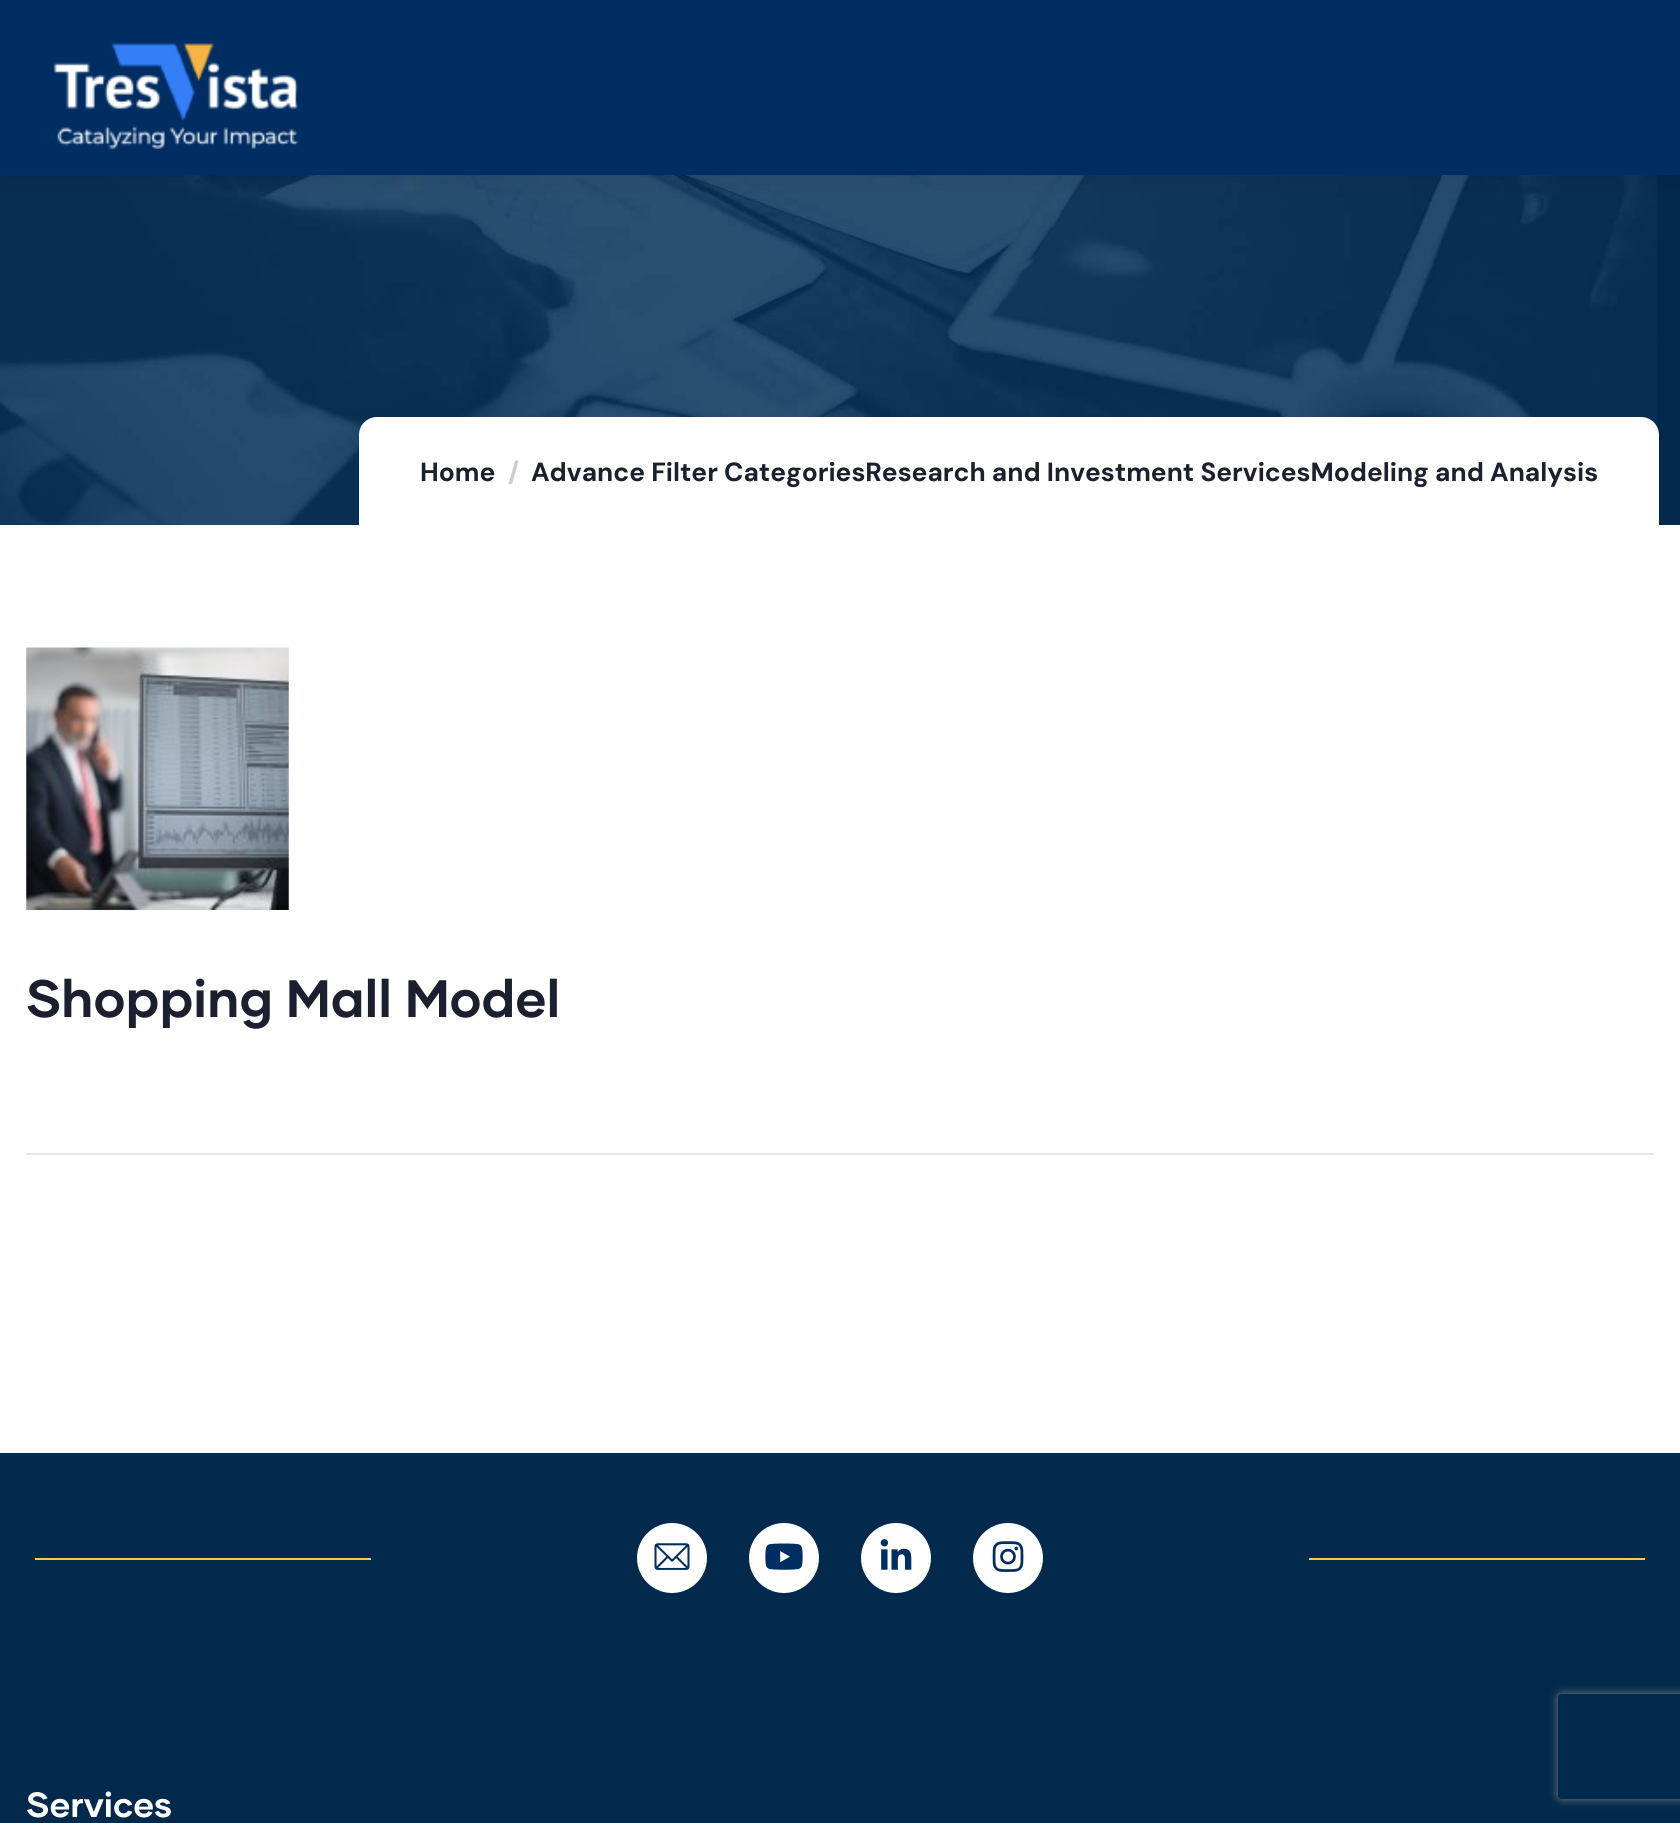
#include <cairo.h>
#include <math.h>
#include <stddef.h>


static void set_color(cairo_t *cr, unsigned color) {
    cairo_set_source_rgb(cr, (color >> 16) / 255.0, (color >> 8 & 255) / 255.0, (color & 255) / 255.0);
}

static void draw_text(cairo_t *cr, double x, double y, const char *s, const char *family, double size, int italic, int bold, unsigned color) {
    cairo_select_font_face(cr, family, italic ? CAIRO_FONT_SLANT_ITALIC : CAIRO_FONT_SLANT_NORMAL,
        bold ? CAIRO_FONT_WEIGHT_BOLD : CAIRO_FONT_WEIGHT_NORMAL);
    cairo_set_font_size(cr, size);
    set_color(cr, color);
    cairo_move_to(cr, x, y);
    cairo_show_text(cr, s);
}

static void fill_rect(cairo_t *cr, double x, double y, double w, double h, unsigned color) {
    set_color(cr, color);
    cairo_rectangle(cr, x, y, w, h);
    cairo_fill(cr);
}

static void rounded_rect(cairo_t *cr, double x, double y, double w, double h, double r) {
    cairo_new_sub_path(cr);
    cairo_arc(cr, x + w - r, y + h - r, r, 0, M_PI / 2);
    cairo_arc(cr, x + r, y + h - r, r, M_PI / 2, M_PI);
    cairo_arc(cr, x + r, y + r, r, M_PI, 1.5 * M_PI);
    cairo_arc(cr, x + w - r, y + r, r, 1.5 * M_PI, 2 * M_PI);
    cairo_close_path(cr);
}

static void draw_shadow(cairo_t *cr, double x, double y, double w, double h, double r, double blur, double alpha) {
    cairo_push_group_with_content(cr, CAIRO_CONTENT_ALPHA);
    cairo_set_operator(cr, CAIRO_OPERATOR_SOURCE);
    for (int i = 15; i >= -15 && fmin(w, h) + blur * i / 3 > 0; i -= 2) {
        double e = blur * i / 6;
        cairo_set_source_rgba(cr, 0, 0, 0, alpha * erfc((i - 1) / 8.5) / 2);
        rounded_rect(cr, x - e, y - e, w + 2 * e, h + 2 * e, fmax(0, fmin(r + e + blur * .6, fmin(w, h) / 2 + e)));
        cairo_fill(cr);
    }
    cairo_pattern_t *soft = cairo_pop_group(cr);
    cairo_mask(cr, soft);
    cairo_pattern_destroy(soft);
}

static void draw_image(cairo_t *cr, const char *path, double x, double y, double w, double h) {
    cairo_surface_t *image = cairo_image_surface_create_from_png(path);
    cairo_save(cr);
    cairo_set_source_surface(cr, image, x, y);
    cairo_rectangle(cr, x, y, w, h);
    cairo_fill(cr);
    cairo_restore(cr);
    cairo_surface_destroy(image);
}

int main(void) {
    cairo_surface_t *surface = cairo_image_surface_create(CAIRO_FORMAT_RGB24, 1680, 1823);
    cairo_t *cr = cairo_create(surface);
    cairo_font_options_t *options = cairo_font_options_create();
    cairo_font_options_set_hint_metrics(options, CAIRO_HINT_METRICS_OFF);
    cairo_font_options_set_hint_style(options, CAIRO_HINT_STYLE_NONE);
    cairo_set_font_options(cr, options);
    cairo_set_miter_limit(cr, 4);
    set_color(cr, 0xFFFFFF);
    cairo_paint(cr);
    draw_image(cr, "assets/img2.png", 0, 175, 1680, 350);
    set_color(cr, 0x000000);
    draw_shadow(cr, 0, 9, 1680, 175, 0, 9, 0.05);
    fill_rect(cr, 0, 0, 1680, 175, 0x002D62);
    draw_image(cr, "assets/img1.png", 53, 43, 245, 106);
    set_color(cr, 0xFFFFFF);
    cairo_new_path(cr);
    cairo_move_to(cr, 377, 417);
    cairo_line_to(cr, 1641, 417);
    cairo_curve_to(cr, 1651, 417, 1659, 425, 1659, 435);
    cairo_line_to(cr, 1659, 525);
    cairo_line_to(cr, 359, 525);
    cairo_line_to(cr, 359, 435);
    cairo_curve_to(cr, 359, 425, 367, 417, 377, 417);
    cairo_close_path(cr);
    cairo_fill(cr);
    draw_text(cr, 420, 481, "Home", "DM Sans", 26.25, 0, 1, 0x1B1F2E);
    draw_text(cr, 508, 481, "/", "DM Sans", 26.25, 0, 1, 0xCCCCCC);
    draw_text(cr, 531, 481, "Advance Filter CategoriesResearch and Investment ServicesModeling and Analysis", "DM Sans", 26.25, 0, 1, 0x1B1F2E);
    draw_image(cr, "assets/img3.png", 26, 647, 263, 263);
    draw_text(cr, 26, 1017, "Shopping Mall Model", "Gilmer", 52.5, 0, 1, 0x1B1F2E);
    fill_rect(cr, 26, 1153, 1628, 2, 0xEBE6DE);
    fill_rect(cr, 0, 1453, 1680, 370, 0x00294B);
    fill_rect(cr, 35, 1558, 336, 2, 0xF5CD48);
    set_color(cr, 0xFFFFFF);
    cairo_new_path(cr);
    cairo_arc(cr, 672, 1558, 35, 0, 2 * M_PI);
    cairo_fill(cr);
    draw_image(cr, "assets/img4.png", 654, 1543, 36, 27);
    cairo_arc(cr, 784, 1558, 35, 0, 2 * M_PI);
    cairo_fill(cr);
    draw_image(cr, "assets/img5.png", 765, 1543, 38, 27);
    cairo_arc(cr, 896, 1558, 35, 0, 2 * M_PI);
    cairo_fill(cr);
    draw_image(cr, "assets/img6.png", 880, 1539, 32, 31);
    cairo_arc(cr, 1008, 1558, 35, 0, 2 * M_PI);
    cairo_fill(cr);
    draw_image(cr, "assets/img7.png", 992, 1541, 32, 31);
    fill_rect(cr, 1309, 1558, 336, 2, 0xF5CD48);
    draw_text(cr, 26, 1817, "Services", "Gilmer", 35, 0, 1, 0xFFFFFF);
    cairo_save(cr);
    cairo_set_fill_rule(cr, CAIRO_FILL_RULE_EVEN_ODD);
    cairo_new_path(cr);
    cairo_move_to(cr, 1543, 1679);
    cairo_line_to(cr, 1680, 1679);
    cairo_line_to(cr, 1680, 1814);
    cairo_line_to(cr, 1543, 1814);
    cairo_close_path(cr);
    cairo_move_to(cr, 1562, 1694);
    cairo_line_to(cr, 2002, 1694);
    cairo_curve_to(cr, 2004, 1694, 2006, 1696, 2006, 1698);
    cairo_line_to(cr, 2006, 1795);
    cairo_curve_to(cr, 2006, 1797, 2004, 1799, 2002, 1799);
    cairo_line_to(cr, 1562, 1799);
    cairo_curve_to(cr, 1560, 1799, 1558, 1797, 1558, 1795);
    cairo_line_to(cr, 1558, 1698);
    cairo_curve_to(cr, 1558, 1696, 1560, 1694, 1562, 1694);
    cairo_close_path(cr);
    cairo_clip(cr);
    set_color(cr, 0x808080);
    draw_shadow(cr, 1558, 1694, 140, 105, 4, 4.5, 1);
    cairo_restore(cr);
    cairo_surface_write_to_png(surface, "output.png");
    cairo_font_options_destroy(options);
    cairo_destroy(cr);
    cairo_surface_destroy(surface);
    return 0;
}
